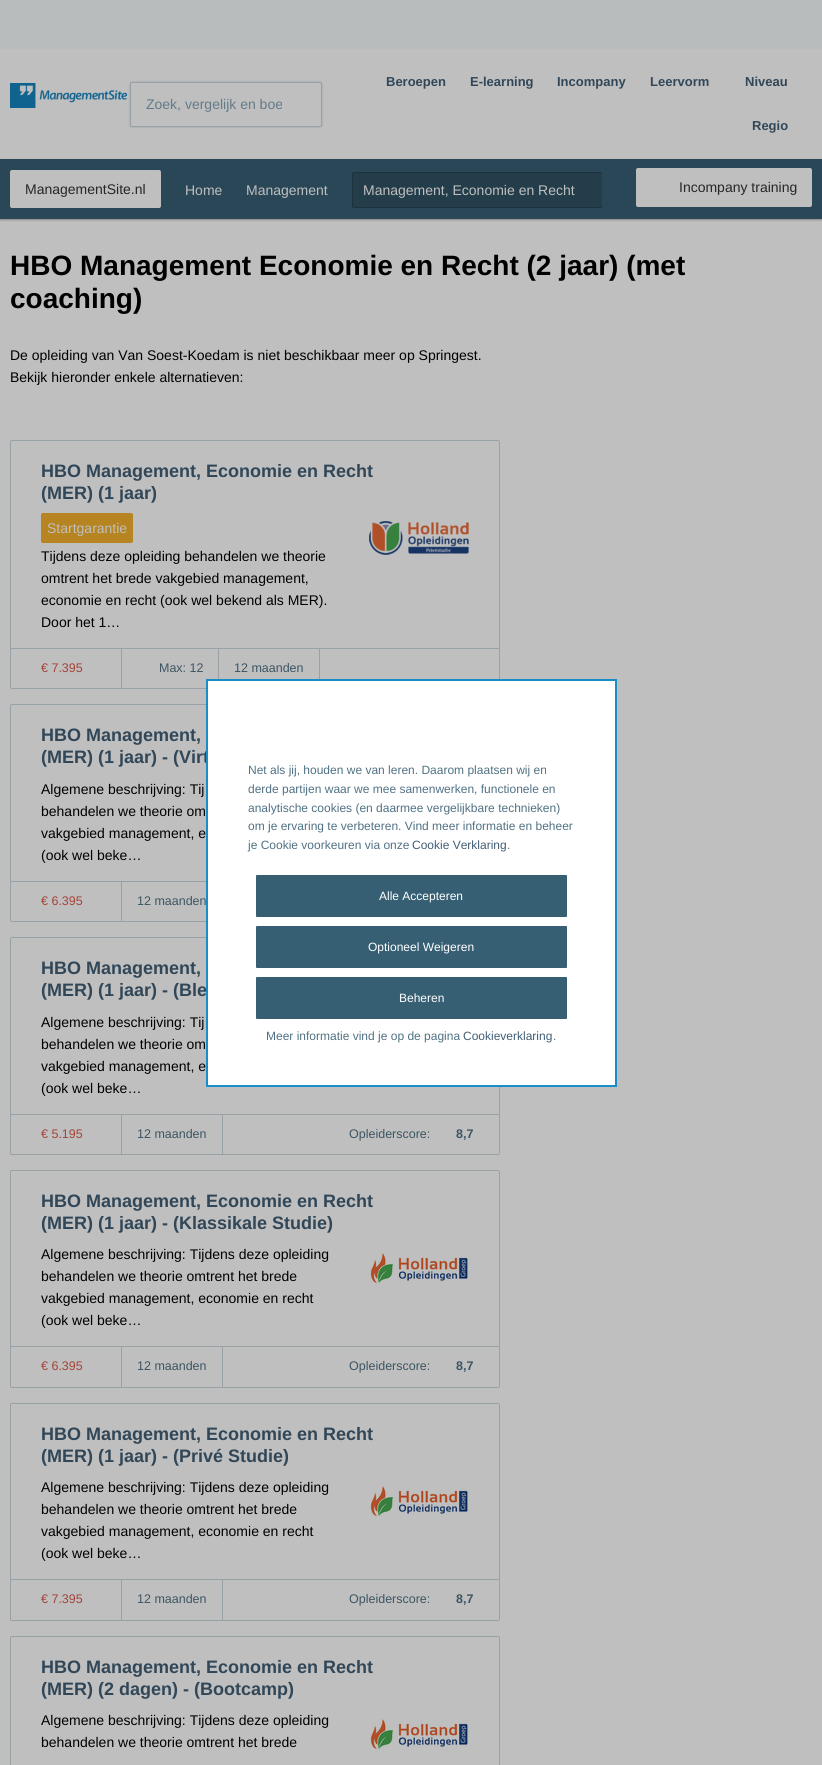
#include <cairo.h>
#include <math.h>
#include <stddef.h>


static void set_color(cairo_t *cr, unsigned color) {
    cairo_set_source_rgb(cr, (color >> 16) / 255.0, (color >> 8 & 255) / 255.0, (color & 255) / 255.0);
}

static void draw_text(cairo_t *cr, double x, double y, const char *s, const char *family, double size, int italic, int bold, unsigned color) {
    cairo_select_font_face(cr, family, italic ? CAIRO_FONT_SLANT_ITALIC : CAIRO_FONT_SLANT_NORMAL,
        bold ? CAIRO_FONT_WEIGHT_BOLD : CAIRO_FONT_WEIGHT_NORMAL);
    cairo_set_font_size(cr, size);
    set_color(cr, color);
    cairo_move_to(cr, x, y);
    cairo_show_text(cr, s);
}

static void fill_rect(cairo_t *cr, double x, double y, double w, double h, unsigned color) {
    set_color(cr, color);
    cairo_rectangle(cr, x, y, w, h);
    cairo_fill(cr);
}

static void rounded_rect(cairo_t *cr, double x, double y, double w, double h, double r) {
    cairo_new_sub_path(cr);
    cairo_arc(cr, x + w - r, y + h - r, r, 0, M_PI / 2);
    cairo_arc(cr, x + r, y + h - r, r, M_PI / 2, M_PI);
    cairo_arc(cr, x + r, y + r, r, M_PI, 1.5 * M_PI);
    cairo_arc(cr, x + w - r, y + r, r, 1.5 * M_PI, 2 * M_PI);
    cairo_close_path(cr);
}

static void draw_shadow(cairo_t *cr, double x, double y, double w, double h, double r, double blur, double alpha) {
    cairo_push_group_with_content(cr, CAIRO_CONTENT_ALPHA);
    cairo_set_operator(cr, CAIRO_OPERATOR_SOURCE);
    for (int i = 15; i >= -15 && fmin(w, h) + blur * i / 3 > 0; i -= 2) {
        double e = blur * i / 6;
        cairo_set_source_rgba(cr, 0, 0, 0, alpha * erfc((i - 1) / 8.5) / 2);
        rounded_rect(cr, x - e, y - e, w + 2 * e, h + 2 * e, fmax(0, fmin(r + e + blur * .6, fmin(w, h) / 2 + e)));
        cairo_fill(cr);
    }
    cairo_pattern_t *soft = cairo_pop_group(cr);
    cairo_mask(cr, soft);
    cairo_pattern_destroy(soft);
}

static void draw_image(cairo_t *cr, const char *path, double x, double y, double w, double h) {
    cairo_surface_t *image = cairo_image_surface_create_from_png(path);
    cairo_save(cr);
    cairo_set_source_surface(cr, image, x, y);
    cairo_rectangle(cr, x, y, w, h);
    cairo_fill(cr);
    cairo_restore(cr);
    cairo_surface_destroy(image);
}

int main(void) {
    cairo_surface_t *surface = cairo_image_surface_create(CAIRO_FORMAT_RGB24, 822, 1765);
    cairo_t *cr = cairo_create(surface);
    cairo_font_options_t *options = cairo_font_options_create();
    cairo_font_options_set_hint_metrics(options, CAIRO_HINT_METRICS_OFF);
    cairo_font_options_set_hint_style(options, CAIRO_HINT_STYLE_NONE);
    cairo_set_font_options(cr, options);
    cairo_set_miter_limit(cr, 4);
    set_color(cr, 0xBFBFBF);
    cairo_paint(cr);
    fill_rect(cr, 0, 0, 822, 49, 0xB9BCBC);
    set_color(cr, 0x98A1A6);
    draw_shadow(cr, 130, 82, 192, 45, 2, 1, 1);
    draw_image(cr, "assets/img1.png", 10, 83, 117, 25);
    set_color(cr, 0xBFBFBF);
    rounded_rect(cr, 130.5, 82.5, 191, 44, 1.5);
    cairo_fill_preserve(cr);
    set_color(cr, 0x98A1A6);
    cairo_set_line_width(cr, 1);
    cairo_stroke(cr);
    cairo_save(cr);
    cairo_rectangle(cr, 146, 96, 136, 16);
    cairo_clip(cr);
    draw_text(cr, 146, 109, "Zoek, vergelijk en boe", "Liberation Sans", 14, 0, 0, 0x637A89);
    cairo_restore(cr);
    draw_text(cr, 386, 86, "Beroepen", "Liberation Sans", 13, 0, 1, 0x314758);
    draw_text(cr, 470, 86, "E-learning", "Liberation Sans", 13, 0, 1, 0x314758);
    draw_text(cr, 557, 86, "Incompany", "Liberation Sans", 13, 0, 1, 0x314758);
    draw_text(cr, 650, 86, "Leervorm", "Liberation Sans", 13, 0, 1, 0x314758);
    draw_text(cr, 745, 86, "Niveau", "Liberation Sans", 13, 0, 1, 0x314758);
    draw_text(cr, 752, 130, "Regio", "Liberation Sans", 13, 0, 1, 0x314758);
    set_color(cr, 0x000000);
    draw_shadow(cr, 0, 160, 822, 60, 0, 1, 0.3);
    fill_rect(cr, 0, 159, 822, 60, 0x294756);
    set_color(cr, 0xBFBFBF);
    rounded_rect(cr, 10, 170, 151, 38, 2);
    cairo_fill(cr);
    draw_text(cr, 25, 194, "ManagementSite.nl", "Liberation Sans", 14, 0, 0, 0x262626);
    draw_text(cr, 185, 195, "Home", "Liberation Sans", 14, 0, 0, 0xBFBFBF);
    draw_text(cr, 246, 195, "Management", "Liberation Sans", 14, 0, 0, 0xBFBFBF);
    set_color(cr, 0x233D4A);
    cairo_new_path(cr);
    cairo_move_to(cr, 354, 172);
    cairo_line_to(cr, 602, 172);
    cairo_line_to(cr, 602, 208);
    cairo_line_to(cr, 354, 208);
    cairo_curve_to(cr, 353, 208, 352, 207, 352, 206);
    cairo_line_to(cr, 352, 174);
    cairo_curve_to(cr, 352, 173, 353, 172, 354, 172);
    cairo_close_path(cr);
    cairo_fill(cr);
    cairo_save(cr);
    cairo_rectangle(cr, 185, 172, 417, 36);
    cairo_clip(cr);
    rounded_rect(cr, 352.5, 172.5, 256, 35, 1.5);
    set_color(cr, 0x1D323D);
    cairo_stroke(cr);
    cairo_restore(cr);
    draw_text(cr, 363, 195, "Management, Economie en Recht", "Liberation Sans", 14, 0, 0, 0xBFBFBF);
    rounded_rect(cr, 636, 168, 176, 39, 2);
    cairo_fill(cr);
    draw_text(cr, 679, 192, "Incompany training", "Liberation Sans", 14, 0, 0, 0x262626);
    draw_text(cr, 10, 275, "HBO Management Economie en Recht (2 jaar) (met", "Liberation Sans", 28, 0, 1, 0x000000);
    draw_text(cr, 10, 308, "coaching)", "Liberation Sans", 28, 0, 1, 0x000000);
    draw_text(cr, 10, 360, "De opleiding van Van Soest-Koedam is niet beschikbaar meer op Springest.", "Liberation Sans", 14, 0, 0, 0x000000);
    draw_text(cr, 10, 382, "Bekijk hieronder enkele alternatieven:", "Liberation Sans", 14, 0, 0, 0x000000);
    rounded_rect(cr, 10.5, 440.5, 489, 248, 1.5);
    set_color(cr, 0x98A1A6);
    cairo_stroke(cr);
    draw_text(cr, 41, 477, "HBO Management, Economie en Recht", "Liberation Sans", 18, 0, 1, 0x314758);
    draw_text(cr, 41, 499, "(MER) (1 jaar)", "Liberation Sans", 18, 0, 1, 0x314758);
    set_color(cr, 0xB68420);
    rounded_rect(cr, 41, 513, 92, 30, 2);
    cairo_fill(cr);
    draw_text(cr, 47, 533, "Startgarantie", "Liberation Sans", 14, 0, 0, 0xBFBFBF);
    draw_image(cr, "assets/img2.png", 369, 521, 100, 34);
    draw_text(cr, 41, 561, "Tijdens deze opleiding behandelen we theorie", "Liberation Sans", 14, 0, 0, 0x000000);
    draw_text(cr, 41, 583, "omtrent het brede vakgebied management,", "Liberation Sans", 14, 0, 0, 0x000000);
    draw_text(cr, 41, 605, "economie en recht (ook wel bekend als MER).", "Liberation Sans", 14, 0, 0, 0x000000);
    draw_text(cr, 41, 627, "Door het 1…", "Liberation Sans", 14, 0, 0, 0x000000);
    fill_rect(cr, 11, 648, 488, 1, 0x98A1A6);
    fill_rect(cr, 121, 649, 1, 39, 0x98A1A6);
    draw_text(cr, 41, 672, "€ 7.395", "Liberation Sans", 12.5, 0, 0, 0xA44339);
    fill_rect(cr, 218, 649, 1, 30, 0x98A1A6);
    draw_text(cr, 159, 672, "Max: 12", "Liberation Sans", 12.5, 0, 0, 0x3C5562);
    fill_rect(cr, 319, 649, 1, 30, 0x98A1A6);
    draw_text(cr, 234, 672, "12 maanden", "Liberation Sans", 12.5, 0, 0, 0x3C5562);
    rounded_rect(cr, 10.5, 704.5, 489, 217, 1.5);
    set_color(cr, 0x98A1A6);
    cairo_stroke(cr);
    draw_text(cr, 41, 741, "HBO Management,", "Liberation Sans", 18, 0, 1, 0x314758);
    draw_text(cr, 41, 763, "(MER) (1 jaar) - (Virt", "Liberation Sans", 18, 0, 1, 0x314758);
    draw_text(cr, 41, 794, "Algemene beschrijving: Tij", "Liberation Sans", 14, 0, 0, 0x000000);
    draw_text(cr, 41, 816, "behandelen we theorie om", "Liberation Sans", 14, 0, 0, 0x000000);
    draw_text(cr, 41, 838, "vakgebied management, e", "Liberation Sans", 14, 0, 0, 0x000000);
    draw_text(cr, 41, 860, "(ook wel beke…", "Liberation Sans", 14, 0, 0, 0x000000);
    fill_rect(cr, 11, 881, 195, 1, 0x98A1A6);
    fill_rect(cr, 121, 882, 1, 39, 0x98A1A6);
    draw_text(cr, 41, 905, "€ 6.395", "Liberation Sans", 12.5, 0, 0, 0xA44339);
    draw_text(cr, 137, 905, "12 maanden", "Liberation Sans", 12.5, 0, 0, 0x3C5562);
    rounded_rect(cr, 10.5, 937.5, 489, 217, 1.5);
    set_color(cr, 0x98A1A6);
    cairo_stroke(cr);
    draw_text(cr, 41, 974, "HBO Management,", "Liberation Sans", 18, 0, 1, 0x314758);
    draw_text(cr, 41, 996, "(MER) (1 jaar) - (Ble", "Liberation Sans", 18, 0, 1, 0x314758);
    draw_text(cr, 41, 1027, "Algemene beschrijving: Tij", "Liberation Sans", 14, 0, 0, 0x000000);
    draw_text(cr, 41, 1049, "behandelen we theorie om", "Liberation Sans", 14, 0, 0, 0x000000);
    draw_text(cr, 41, 1071, "vakgebied management, e", "Liberation Sans", 14, 0, 0, 0x000000);
    draw_text(cr, 41, 1093, "(ook wel beke…", "Liberation Sans", 14, 0, 0, 0x000000);
    fill_rect(cr, 11, 1114, 488, 1, 0x98A1A6);
    fill_rect(cr, 121, 1115, 1, 39, 0x98A1A6);
    draw_text(cr, 41, 1138, "€ 5.195", "Liberation Sans", 12.5, 0, 0, 0xA44339);
    fill_rect(cr, 222, 1115, 1, 39, 0x98A1A6);
    draw_text(cr, 137, 1138, "12 maanden", "Liberation Sans", 12.5, 0, 0, 0x3C5562);
    draw_text(cr, 349, 1138, "Opleiderscore:", "Liberation Sans", 12.5, 0, 0, 0x3C5562);
    draw_text(cr, 456, 1138, "8,7", "Liberation Sans", 12.5, 0, 1, 0x3C5562);
    rounded_rect(cr, 10.5, 1170.5, 489, 217, 1.5);
    set_color(cr, 0x98A1A6);
    cairo_stroke(cr);
    draw_text(cr, 41, 1207, "HBO Management, Economie en Recht", "Liberation Sans", 18, 0, 1, 0x314758);
    draw_text(cr, 41, 1229, "(MER) (1 jaar) - (Klassikale Studie)", "Liberation Sans", 18, 0, 1, 0x314758);
    draw_text(cr, 41, 1259, "Algemene beschrijving: Tijdens deze opleiding", "Liberation Sans", 14, 0, 0, 0x000000);
    draw_text(cr, 41, 1281, "behandelen we theorie omtrent het brede", "Liberation Sans", 14, 0, 0, 0x000000);
    draw_text(cr, 41, 1303, "vakgebied management, economie en recht", "Liberation Sans", 14, 0, 0, 0x000000);
    draw_text(cr, 41, 1325, "(ook wel beke…", "Liberation Sans", 14, 0, 0, 0x000000);
    draw_image(cr, "assets/img3.png", 370, 1253, 98, 31);
    fill_rect(cr, 11, 1346, 488, 1, 0x98A1A6);
    fill_rect(cr, 121, 1347, 1, 40, 0x98A1A6);
    draw_text(cr, 41, 1370, "€ 6.395", "Liberation Sans", 12.5, 0, 0, 0xA44339);
    fill_rect(cr, 222, 1347, 1, 40, 0x98A1A6);
    draw_text(cr, 137, 1370, "12 maanden", "Liberation Sans", 12.5, 0, 0, 0x3C5562);
    draw_text(cr, 349, 1370, "Opleiderscore:", "Liberation Sans", 12.5, 0, 0, 0x3C5562);
    draw_text(cr, 456, 1370, "8,7", "Liberation Sans", 12.5, 0, 1, 0x3C5562);
    rounded_rect(cr, 10.5, 1403.5, 489, 217, 1.5);
    set_color(cr, 0x98A1A6);
    cairo_stroke(cr);
    draw_text(cr, 41, 1440, "HBO Management, Economie en Recht", "Liberation Sans", 18, 0, 1, 0x314758);
    draw_text(cr, 41, 1462, "(MER) (1 jaar) - (Privé Studie)", "Liberation Sans", 18, 0, 1, 0x314758);
    draw_text(cr, 41, 1492, "Algemene beschrijving: Tijdens deze opleiding", "Liberation Sans", 14, 0, 0, 0x000000);
    draw_text(cr, 41, 1514, "behandelen we theorie omtrent het brede", "Liberation Sans", 14, 0, 0, 0x000000);
    draw_text(cr, 41, 1536, "vakgebied management, economie en recht", "Liberation Sans", 14, 0, 0, 0x000000);
    draw_text(cr, 41, 1558, "(ook wel beke…", "Liberation Sans", 14, 0, 0, 0x000000);
    draw_image(cr, "assets/img3.png", 370, 1486, 98, 31);
    fill_rect(cr, 11, 1579, 488, 1, 0x98A1A6);
    fill_rect(cr, 121, 1580, 1, 40, 0x98A1A6);
    draw_text(cr, 41, 1603, "€ 7.395", "Liberation Sans", 12.5, 0, 0, 0xA44339);
    fill_rect(cr, 222, 1580, 1, 40, 0x98A1A6);
    draw_text(cr, 137, 1603, "12 maanden", "Liberation Sans", 12.5, 0, 0, 0x3C5562);
    draw_text(cr, 349, 1603, "Opleiderscore:", "Liberation Sans", 12.5, 0, 0, 0x3C5562);
    draw_text(cr, 456, 1603, "8,7", "Liberation Sans", 12.5, 0, 1, 0x3C5562);
    rounded_rect(cr, 10.5, 1636.5, 489, 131, 1.5);
    set_color(cr, 0x98A1A6);
    cairo_stroke(cr);
    draw_text(cr, 41, 1673, "HBO Management, Economie en Recht", "Liberation Sans", 18, 0, 1, 0x314758);
    draw_text(cr, 41, 1695, "(MER) (2 dagen) - (Bootcamp)", "Liberation Sans", 18, 0, 1, 0x314758);
    draw_text(cr, 41, 1725, "Algemene beschrijving: Tijdens deze opleiding", "Liberation Sans", 14, 0, 0, 0x000000);
    draw_text(cr, 41, 1747, "behandelen we theorie omtrent het brede", "Liberation Sans", 14, 0, 0, 0x000000);
    draw_image(cr, "assets/img3.png", 370, 1719, 98, 31);
    set_color(cr, 0xFFFFFF);
    cairo_rectangle(cr, 207, 680, 409, 406);
    cairo_fill_preserve(cr);
    set_color(cr, 0x198DC8);
    cairo_set_line_width(cr, 2);
    cairo_stroke(cr);
    draw_text(cr, 248, 774, "Net als jij, houden we van leren. Daarom plaatsen wij en", "Liberation Sans", 12, 0, 0, 0x507183);
    draw_text(cr, 248, 793, "derde partijen waar we mee samenwerken, functionele en", "Liberation Sans", 12, 0, 0, 0x507183);
    draw_text(cr, 248, 812, "analytische cookies (en daarmee vergelijkbare technieken)", "Liberation Sans", 12, 0, 0, 0x507183);
    draw_text(cr, 248, 830, "om je ervaring te verbeteren. Vind meer informatie en beheer", "Liberation Sans", 12, 0, 0, 0x507183);
    draw_text(cr, 248, 849, "je Cookie voorkeuren via onze", "Liberation Sans", 12, 0, 0, 0x507183);
    draw_text(cr, 412, 849, "Cookie Verklaring", "Liberation Sans", 12, 0, 0, 0x415E75);
    draw_text(cr, 507, 849, ".", "Liberation Sans", 12, 0, 0, 0x507183);
    set_color(cr, 0x375F73);
    rounded_rect(cr, 255.5, 874.5, 312, 43, 1.5);
    cairo_fill_preserve(cr);
    set_color(cr, 0xFFFFFF);
    cairo_set_line_width(cr, 1);
    cairo_stroke(cr);
    draw_text(cr, 379, 900, "Alle Accepteren", "Liberation Sans", 12, 0, 0, 0xFFFFFF);
    set_color(cr, 0x375F73);
    rounded_rect(cr, 255.5, 925.5, 312, 43, 1.5);
    cairo_fill_preserve(cr);
    set_color(cr, 0xFFFFFF);
    cairo_stroke(cr);
    draw_text(cr, 368, 951, "Optioneel Weigeren", "Liberation Sans", 12, 0, 0, 0xFFFFFF);
    set_color(cr, 0x375F73);
    rounded_rect(cr, 255.5, 976.5, 312, 43, 1.5);
    cairo_fill_preserve(cr);
    set_color(cr, 0xFFFFFF);
    cairo_stroke(cr);
    draw_text(cr, 399, 1002, "Beheren", "Liberation Sans", 12, 0, 0, 0xFFFFFF);
    draw_text(cr, 266, 1040, "Meer informatie vind je op de pagina", "Liberation Sans", 12, 0, 0, 0x507183);
    draw_text(cr, 463, 1040, "Cookieverklaring", "Liberation Sans", 12, 0, 0, 0x415E75);
    draw_text(cr, 553, 1040, ".", "Liberation Sans", 12, 0, 0, 0x507183);
    cairo_surface_write_to_png(surface, "output.png");
    cairo_font_options_destroy(options);
    cairo_destroy(cr);
    cairo_surface_destroy(surface);
    return 0;
}
